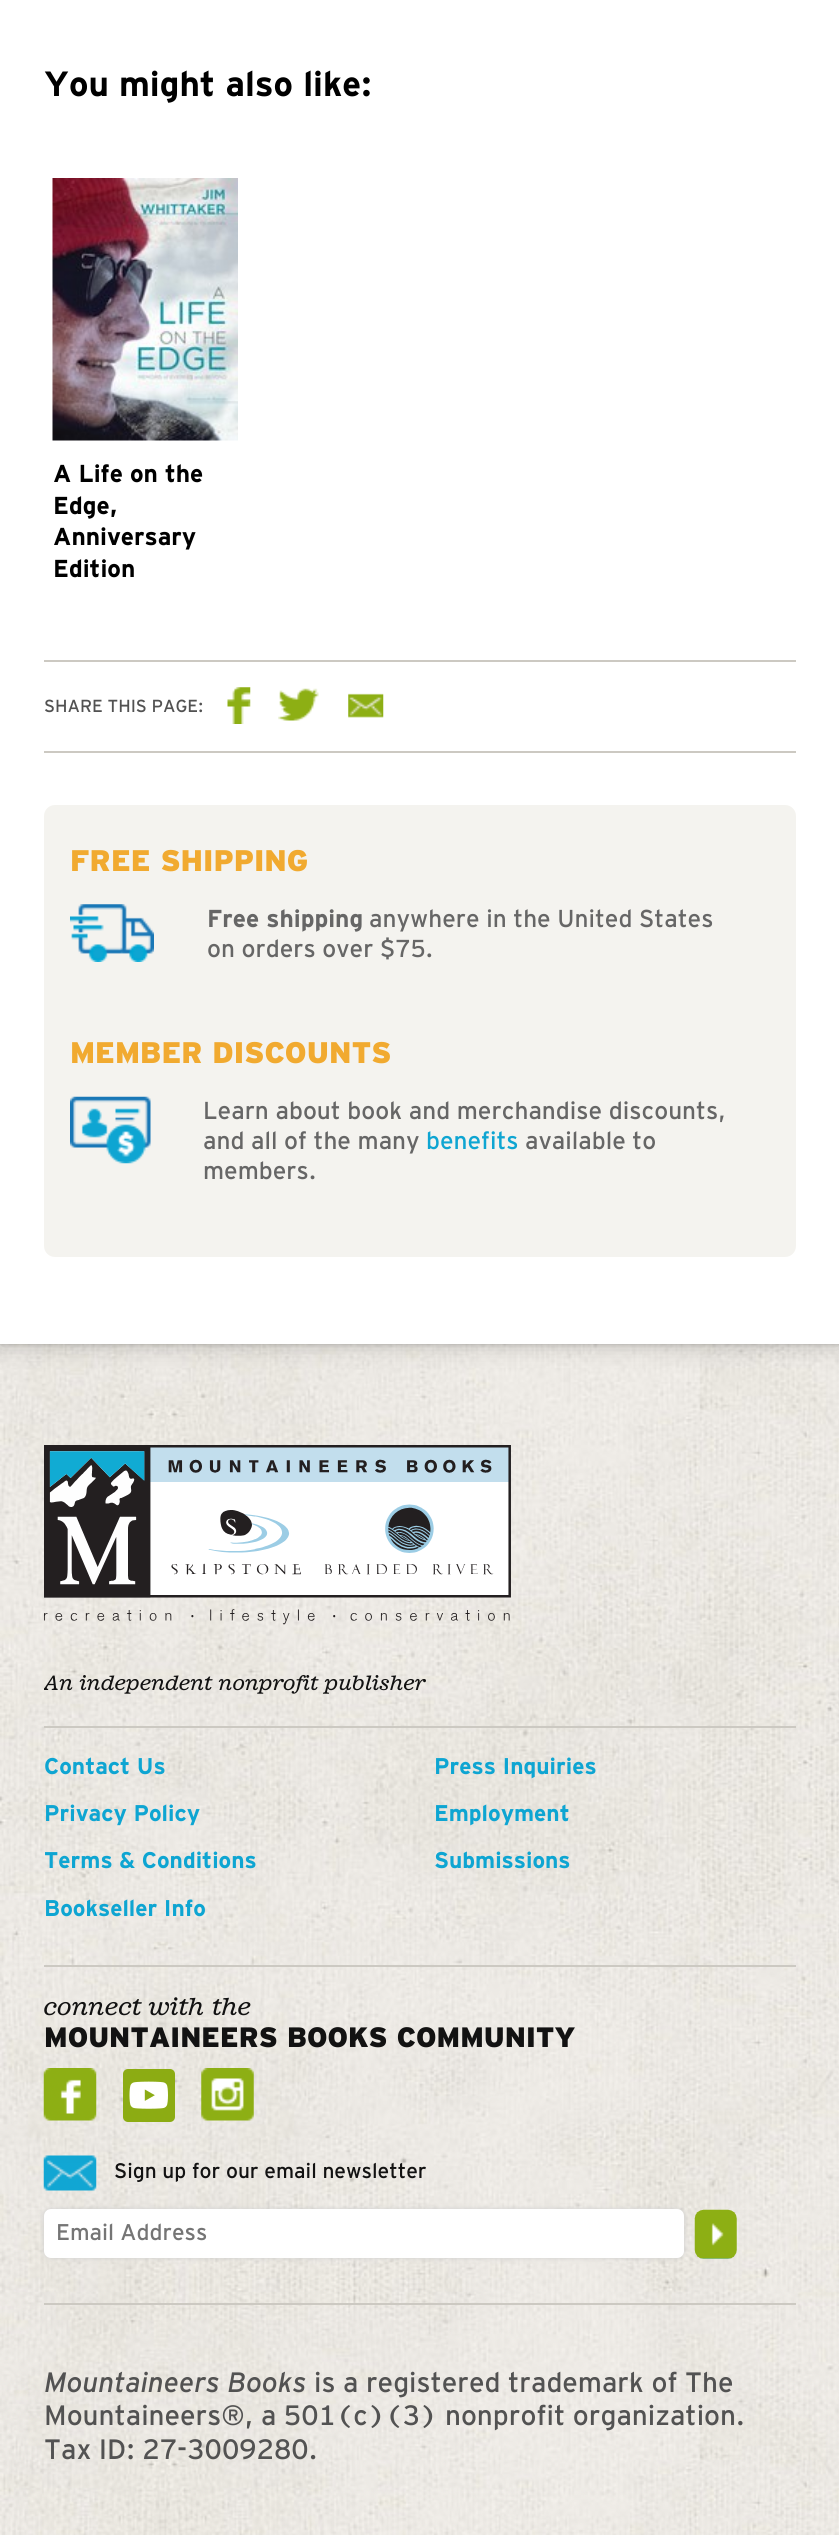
#include <cairo.h>
#include <math.h>
#include <stddef.h>


static void set_color(cairo_t *cr, unsigned color) {
    cairo_set_source_rgb(cr, (color >> 16) / 255.0, (color >> 8 & 255) / 255.0, (color & 255) / 255.0);
}

static void draw_text(cairo_t *cr, double x, double y, const char *s, const char *family, double size, int italic, int bold, unsigned color) {
    cairo_select_font_face(cr, family, italic ? CAIRO_FONT_SLANT_ITALIC : CAIRO_FONT_SLANT_NORMAL,
        bold ? CAIRO_FONT_WEIGHT_BOLD : CAIRO_FONT_WEIGHT_NORMAL);
    cairo_set_font_size(cr, size);
    set_color(cr, color);
    cairo_move_to(cr, x, y);
    cairo_show_text(cr, s);
}

static void fill_rect(cairo_t *cr, double x, double y, double w, double h, unsigned color) {
    set_color(cr, color);
    cairo_rectangle(cr, x, y, w, h);
    cairo_fill(cr);
}

static void rounded_rect(cairo_t *cr, double x, double y, double w, double h, double r) {
    cairo_new_sub_path(cr);
    cairo_arc(cr, x + w - r, y + h - r, r, 0, M_PI / 2);
    cairo_arc(cr, x + r, y + h - r, r, M_PI / 2, M_PI);
    cairo_arc(cr, x + r, y + r, r, M_PI, 1.5 * M_PI);
    cairo_arc(cr, x + w - r, y + r, r, 1.5 * M_PI, 2 * M_PI);
    cairo_close_path(cr);
}

static void draw_shadow(cairo_t *cr, double x, double y, double w, double h, double r, double blur, double alpha) {
    cairo_push_group_with_content(cr, CAIRO_CONTENT_ALPHA);
    cairo_set_operator(cr, CAIRO_OPERATOR_SOURCE);
    for (int i = 15; i >= -15 && fmin(w, h) + blur * i / 3 > 0; i -= 2) {
        double e = blur * i / 6;
        cairo_set_source_rgba(cr, 0, 0, 0, alpha * erfc((i - 1) / 8.5) / 2);
        rounded_rect(cr, x - e, y - e, w + 2 * e, h + 2 * e, fmax(0, fmin(r + e + blur * .6, fmin(w, h) / 2 + e)));
        cairo_fill(cr);
    }
    cairo_pattern_t *soft = cairo_pop_group(cr);
    cairo_mask(cr, soft);
    cairo_pattern_destroy(soft);
}

static void draw_image(cairo_t *cr, const char *path, double x, double y, double w, double h) {
    cairo_surface_t *image = cairo_image_surface_create_from_png(path);
    cairo_save(cr);
    cairo_set_source_surface(cr, image, x, y);
    cairo_rectangle(cr, x, y, w, h);
    cairo_fill(cr);
    cairo_restore(cr);
    cairo_surface_destroy(image);
}

int main(void) {
    cairo_surface_t *surface = cairo_image_surface_create(CAIRO_FORMAT_RGB24, 839, 2535);
    cairo_t *cr = cairo_create(surface);
    cairo_font_options_t *options = cairo_font_options_create();
    cairo_font_options_set_hint_metrics(options, CAIRO_HINT_METRICS_OFF);
    cairo_font_options_set_hint_style(options, CAIRO_HINT_STYLE_NONE);
    cairo_set_font_options(cr, options);
    cairo_set_miter_limit(cr, 4);
    set_color(cr, 0xFFFFFF);
    cairo_paint(cr);
    draw_image(cr, "assets/img1.png", 0, 1344, 839, 1191);
    set_color(cr, 0x000000);
    draw_shadow(cr, 0, -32, 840, 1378, 0, 10.5, 0.2);
    draw_shadow(cr, 0, -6, 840, 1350, 0, 2, 0.2);
    fill_rect(cr, 0, 0, 839, 1344, 0xFFFFFF);
    draw_text(cr, 44, 96, "You might also like:", "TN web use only", 35, 0, 1, 0x000000);
    draw_image(cr, "assets/img2.png", 52, 178, 186, 263);
    draw_text(cr, 53, 482, "A Life on the", "TN web use only", 24.5, 0, 1, 0x000000);
    draw_text(cr, 53, 514, "Edge,", "TN web use only", 24.5, 0, 1, 0x000000);
    draw_text(cr, 53, 545, "Anniversary", "TN web use only", 24.5, 0, 1, 0x000000);
    draw_text(cr, 53, 577, "Edition", "TN web use only", 24.5, 0, 1, 0x000000);
    fill_rect(cr, 44, 660, 752, 2, 0xCCC9C2);
    draw_text(cr, 44, 712, "SHARE THIS PAGE:", "TN web use only", 17.5, 0, 0, 0x525252);
    draw_image(cr, "assets/img3.png", 227, 687, 24, 37);
    draw_image(cr, "assets/img4.png", 278, 688, 41, 33);
    draw_image(cr, "assets/img5.png", 348, 693, 36, 25);
    fill_rect(cr, 44, 751, 752, 2, 0xCCC9C2);
    set_color(cr, 0xF4F3EF);
    rounded_rect(cr, 44, 805, 752, 452, 11);
    cairo_fill(cr);
    draw_text(cr, 70, 871, "FREE SHIPPING", "TN web use only Black", 29.75, 0, 0, 0xF1AA30);
    draw_image(cr, "assets/img6.png", 70, 904, 84, 58);
    draw_text(cr, 207, 927, "Free shipping", "TN web use only", 24.5, 0, 1, 0x666666);
    draw_text(cr, 369, 927, "anywhere in the United States", "TN web use only", 24.5, 0, 0, 0x666666);
    draw_text(cr, 207, 957, "on orders over $75.", "TN web use only", 24.5, 0, 0, 0x666666);
    draw_text(cr, 70, 1063, "MEMBER DISCOUNTS", "TN web use only Black", 29.75, 0, 0, 0xF1AA30);
    draw_image(cr, "assets/img7.png", 70, 1096, 81, 68);
    draw_text(cr, 203, 1119, "Learn about book and merchandise discounts,", "TN web use only", 24.5, 0, 0, 0x666666);
    draw_text(cr, 203, 1149, "and all of the many", "TN web use only", 24.5, 0, 0, 0x666666);
    draw_text(cr, 426, 1149, "benefits", "TN web use only", 24.5, 0, 0, 0x0EA5D2);
    draw_text(cr, 525, 1149, "available to", "TN web use only", 24.5, 0, 0, 0x666666);
    draw_text(cr, 203, 1179, "members.", "TN web use only", 24.5, 0, 0, 0x666666);
    fill_rect(cr, 44, 1726, 752, 2, 0xCCC9C2);
    draw_image(cr, "assets/img8.png", 44, 1445, 467, 180);
    cairo_save(cr);
    cairo_rectangle(cr, 44, 1670, 752, 29);
    cairo_clip(cr);
    draw_text(cr, 44, 1690, "An independent nonprofit publisher", "TN web use only", 19.25, 1, 0, 0x121212);
    cairo_restore(cr);
    fill_rect(cr, 44, 1965, 752, 2, 0xCCC9C2);
    draw_text(cr, 44, 1774, "Contact Us", "TN web use only", 22.75, 0, 1, 0x0EA5D2);
    draw_text(cr, 434, 1774, "Press Inquiries", "TN web use only", 22.75, 0, 1, 0x0EA5D2);
    draw_text(cr, 44, 1821, "Privacy Policy", "TN web use only", 22.75, 0, 1, 0x0EA5D2);
    draw_text(cr, 434, 1821, "Employment", "TN web use only", 22.75, 0, 1, 0x0EA5D2);
    draw_text(cr, 44, 1868, "Terms & Conditions", "TN web use only", 22.75, 0, 1, 0x0EA5D2);
    draw_text(cr, 434, 1868, "Submissions", "TN web use only", 22.75, 0, 1, 0x0EA5D2);
    draw_text(cr, 44, 1916, "Bookseller Info", "TN web use only", 22.75, 0, 1, 0x0EA5D2);
    fill_rect(cr, 44, 2303, 752, 2, 0xCCC9C2);
    draw_text(cr, 44, 2015, "connect with the", "TN web use only", 22.75, 1, 0, 0x121212);
    draw_text(cr, 44, 2047, "MOUNTAINEERS BOOKS COMMUNITY", "TN web use only Black", 28, 0, 0, 0x121212);
    draw_image(cr, "assets/img9.png", 43, 2068, 54, 53);
    draw_image(cr, "assets/img10.png", 123, 2069, 52, 53);
    draw_image(cr, "assets/img11.png", 201, 2068, 53, 53);
    draw_image(cr, "assets/img12.png", 43, 2155, 54, 36);
    draw_text(cr, 114, 2178, "Sign up for our email newsletter", "TN web use only", 21, 0, 0, 0x121212);
    set_color(cr, 0xCCCCCC);
    draw_shadow(cr, 44, 2209, 640, 49, 7, 2.5, 1);
    set_color(cr, 0xFFFFFF);
    rounded_rect(cr, 44, 2209, 640, 49, 7);
    cairo_fill(cr);
    draw_text(cr, 56, 2240, "Email Address", "TN web use only", 22.75, 0, 0, 0x757575);
    draw_image(cr, "assets/img13.png", 694, 2209, 43, 50);
    draw_text(cr, 44, 2392, "Mountaineers Books", "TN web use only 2", 28, 1, 0, 0x525252);
    draw_text(cr, 314, 2392, "is a registered trademark of The", "TN web use only", 28, 0, 0, 0x525252);
    draw_text(cr, 44, 2425, "Mountaineers®, a 501(c)(3) nonprofit organization.", "TN web use only", 28, 0, 0, 0x525252);
    draw_text(cr, 44, 2459, "Tax ID: 27-3009280.", "TN web use only", 28, 0, 0, 0x525252);
    cairo_surface_write_to_png(surface, "output.png");
    cairo_font_options_destroy(options);
    cairo_destroy(cr);
    cairo_surface_destroy(surface);
    return 0;
}
